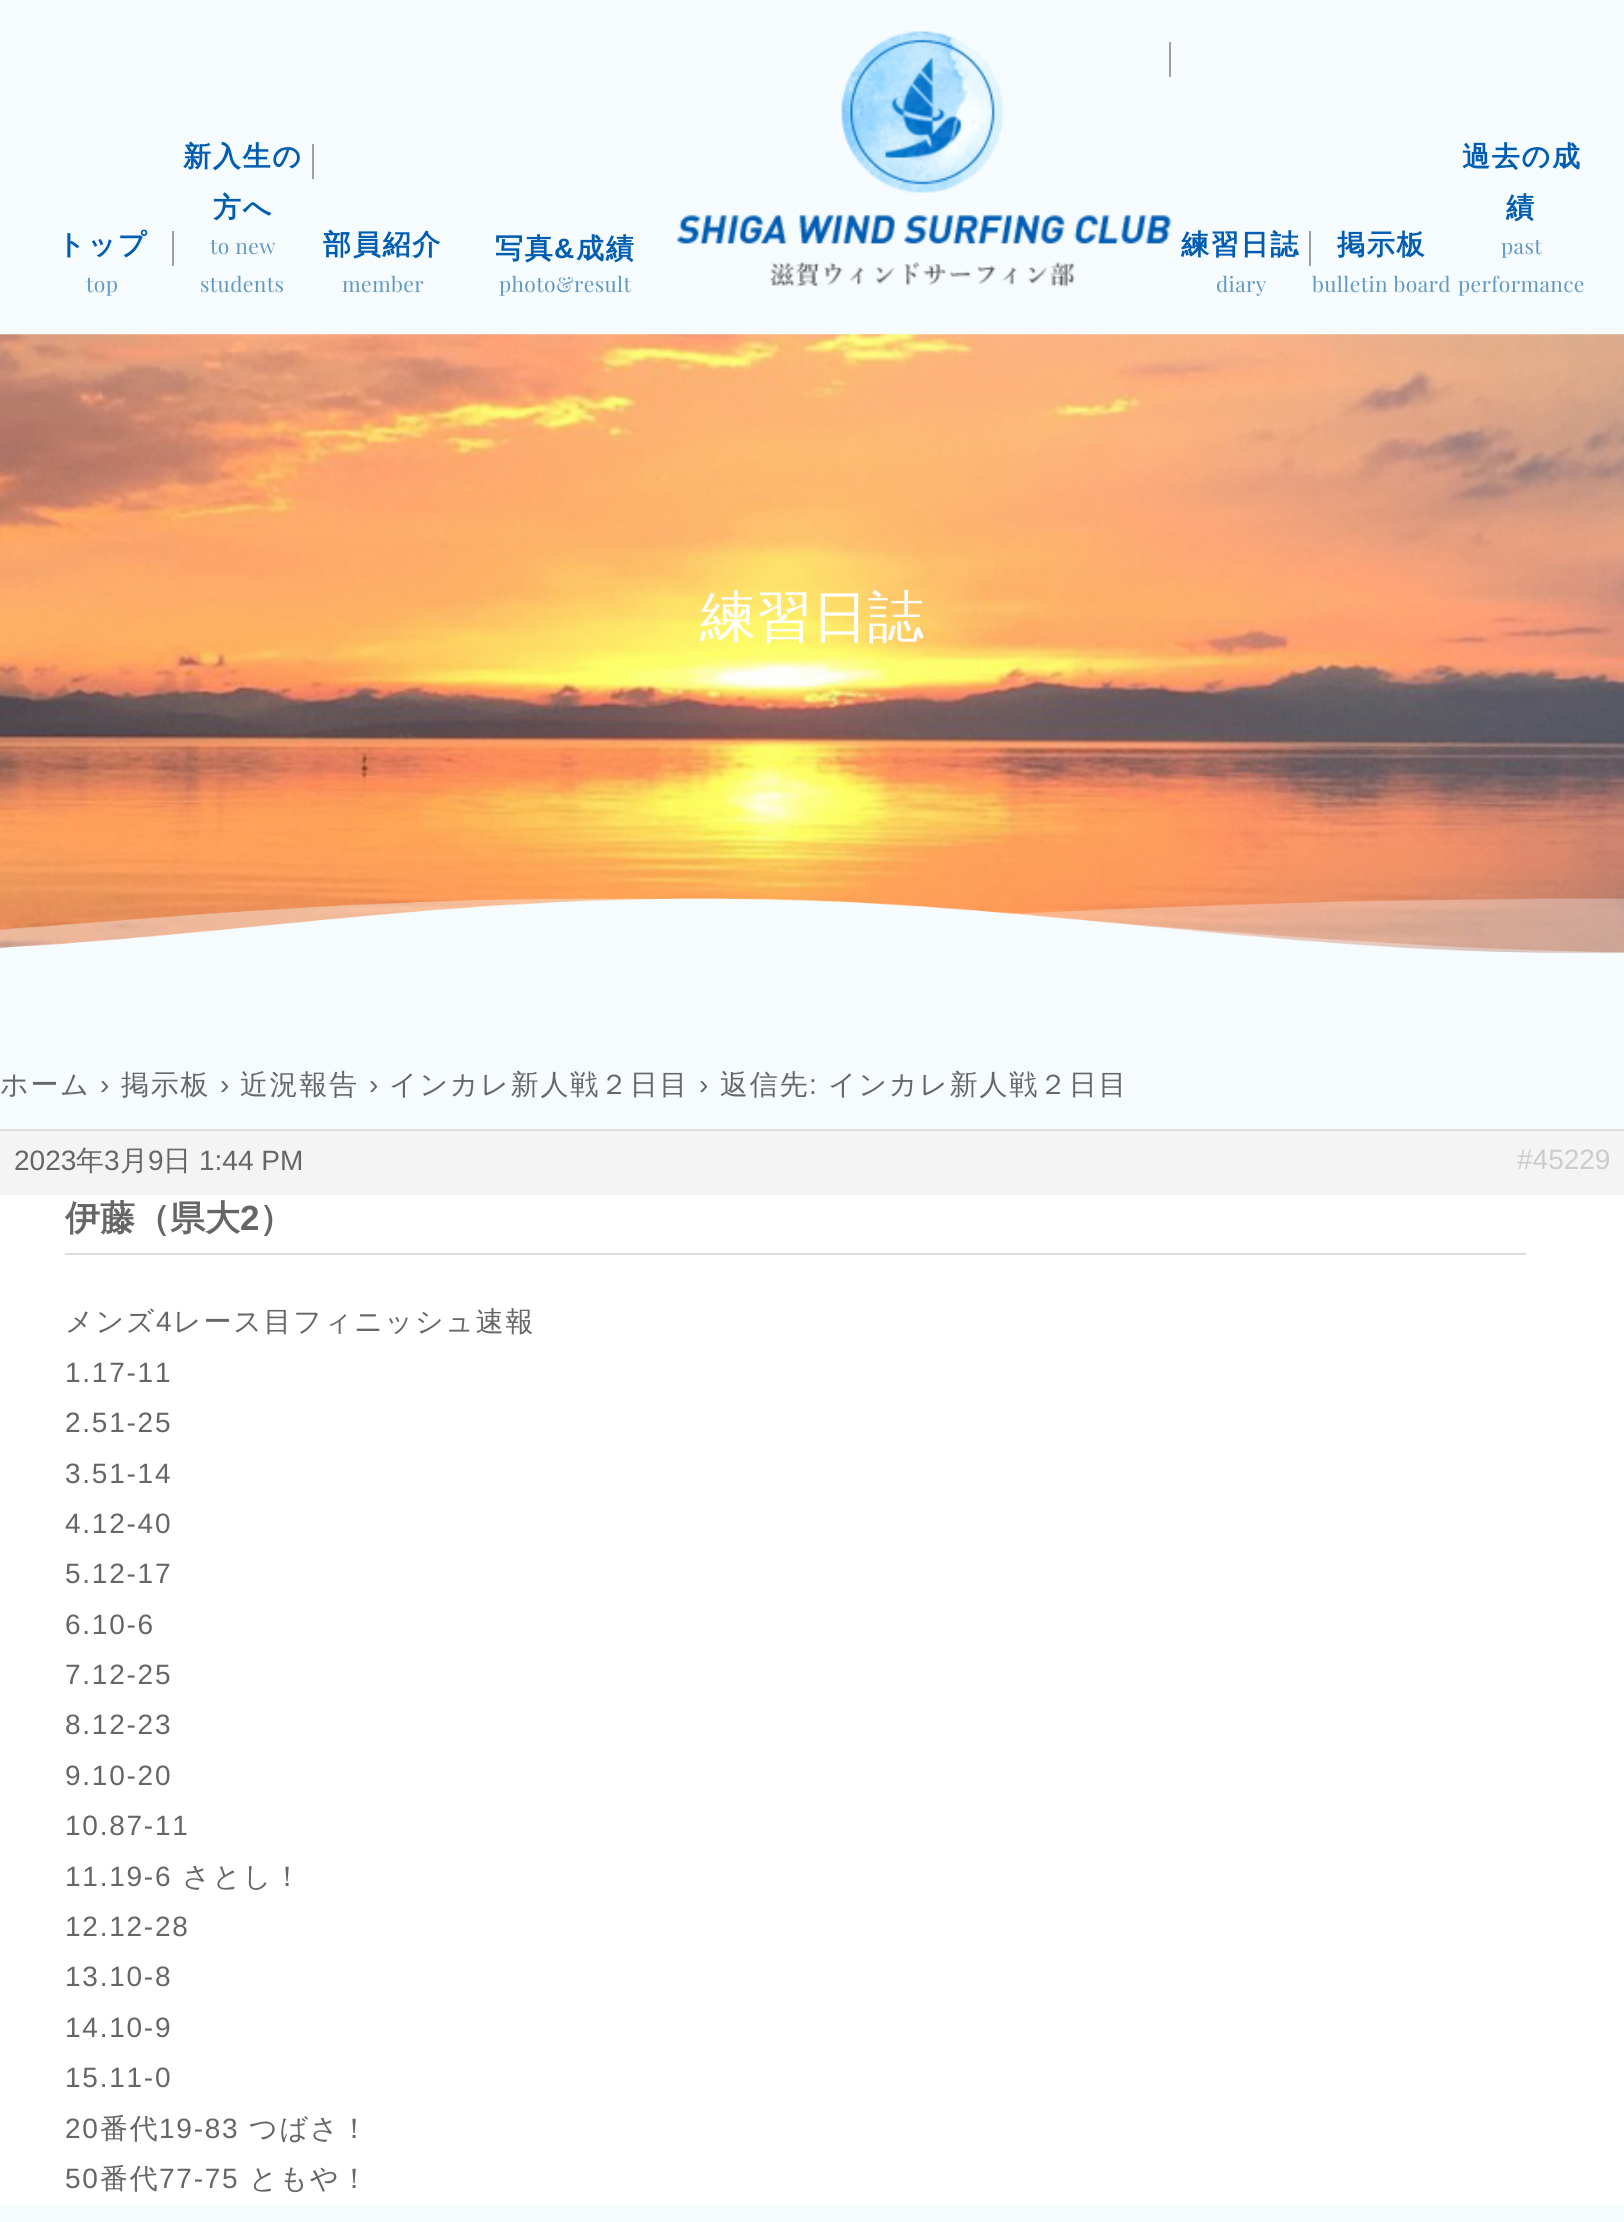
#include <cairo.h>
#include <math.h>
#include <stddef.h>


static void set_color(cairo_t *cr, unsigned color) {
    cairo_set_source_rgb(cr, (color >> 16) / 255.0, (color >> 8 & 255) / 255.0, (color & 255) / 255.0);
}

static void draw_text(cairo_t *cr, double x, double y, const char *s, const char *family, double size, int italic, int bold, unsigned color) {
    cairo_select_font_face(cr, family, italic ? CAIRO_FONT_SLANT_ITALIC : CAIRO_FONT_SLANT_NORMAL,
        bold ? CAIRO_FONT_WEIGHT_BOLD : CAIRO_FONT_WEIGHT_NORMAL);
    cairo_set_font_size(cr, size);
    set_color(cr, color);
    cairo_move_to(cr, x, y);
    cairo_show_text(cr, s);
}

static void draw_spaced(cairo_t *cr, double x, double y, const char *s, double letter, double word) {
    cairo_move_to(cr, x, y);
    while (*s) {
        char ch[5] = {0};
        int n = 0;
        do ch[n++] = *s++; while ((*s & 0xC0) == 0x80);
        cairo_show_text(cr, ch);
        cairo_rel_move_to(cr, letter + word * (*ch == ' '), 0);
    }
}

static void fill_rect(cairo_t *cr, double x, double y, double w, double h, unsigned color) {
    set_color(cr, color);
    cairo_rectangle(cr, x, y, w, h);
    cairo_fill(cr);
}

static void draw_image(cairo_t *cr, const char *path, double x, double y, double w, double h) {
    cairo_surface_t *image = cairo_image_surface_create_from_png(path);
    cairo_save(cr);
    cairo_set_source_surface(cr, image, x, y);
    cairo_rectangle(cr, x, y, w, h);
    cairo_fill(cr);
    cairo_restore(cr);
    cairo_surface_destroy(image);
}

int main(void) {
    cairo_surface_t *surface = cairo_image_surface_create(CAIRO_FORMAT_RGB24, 1624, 2222);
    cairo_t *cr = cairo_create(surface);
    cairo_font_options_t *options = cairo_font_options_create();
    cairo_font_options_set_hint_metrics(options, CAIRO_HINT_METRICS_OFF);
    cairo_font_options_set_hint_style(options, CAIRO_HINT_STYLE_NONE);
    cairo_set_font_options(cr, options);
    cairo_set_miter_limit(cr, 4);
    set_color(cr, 0xF6FBFE);
    cairo_paint(cr);
    cairo_select_font_face(cr, "WenQuanYi Zen Hei", CAIRO_FONT_SLANT_NORMAL, CAIRO_FONT_WEIGHT_BOLD);
    cairo_set_font_size(cr, 28);
    set_color(cr, 0x015DB2);
    draw_spaced(cr, 57, 254, "トップ", 1.75, 0);
    cairo_select_font_face(cr, "Playfair Display", CAIRO_FONT_SLANT_NORMAL, CAIRO_FONT_WEIGHT_NORMAL);
    cairo_set_font_size(cr, 21);
    set_color(cr, 0x6098C3);
    draw_spaced(cr, 86, 292, "top", 0.4, 0);
    fill_rect(cr, 172, 231, 2, 35, 0xA0A0A0);
    cairo_select_font_face(cr, "WenQuanYi Zen Hei", CAIRO_FONT_SLANT_NORMAL, CAIRO_FONT_WEIGHT_BOLD);
    cairo_set_font_size(cr, 28);
    set_color(cr, 0x015DB2);
    draw_spaced(cr, 183, 166, "新入生の", 1.75, 0);
    draw_spaced(cr, 213, 217, "方へ", 1.75, 0);
    cairo_select_font_face(cr, "Playfair Display", CAIRO_FONT_SLANT_NORMAL, CAIRO_FONT_WEIGHT_NORMAL);
    cairo_set_font_size(cr, 21);
    set_color(cr, 0x6098C3);
    draw_spaced(cr, 210, 254, "to new", 0.4, 0);
    draw_spaced(cr, 200, 292, "students", 0.4, 0);
    fill_rect(cr, 312, 144, 2, 35, 0xA0A0A0);
    cairo_select_font_face(cr, "WenQuanYi Zen Hei", CAIRO_FONT_SLANT_NORMAL, CAIRO_FONT_WEIGHT_BOLD);
    cairo_set_font_size(cr, 28);
    set_color(cr, 0x015DB2);
    draw_spaced(cr, 323, 254, "部員紹介", 1.75, 0);
    cairo_select_font_face(cr, "Playfair Display", CAIRO_FONT_SLANT_NORMAL, CAIRO_FONT_WEIGHT_NORMAL);
    cairo_set_font_size(cr, 21);
    set_color(cr, 0x6098C3);
    draw_spaced(cr, 342, 292, "member", 0.4, 0);
    cairo_select_font_face(cr, "WenQuanYi Zen Hei", CAIRO_FONT_SLANT_NORMAL, CAIRO_FONT_WEIGHT_BOLD);
    cairo_set_font_size(cr, 28);
    set_color(cr, 0x015DB2);
    draw_spaced(cr, 495, 258, "写真", 1.75, 0);
    cairo_select_font_face(cr, "Liberation Sans", CAIRO_FONT_SLANT_NORMAL, CAIRO_FONT_WEIGHT_BOLD);
    draw_spaced(cr, 554, 258, "&", 1.75, 0);
    cairo_select_font_face(cr, "WenQuanYi Zen Hei", CAIRO_FONT_SLANT_NORMAL, CAIRO_FONT_WEIGHT_BOLD);
    draw_spaced(cr, 576, 258, "成績", 1.75, 0);
    cairo_select_font_face(cr, "Playfair Display", CAIRO_FONT_SLANT_NORMAL, CAIRO_FONT_WEIGHT_NORMAL);
    cairo_set_font_size(cr, 21);
    set_color(cr, 0x6098C3);
    draw_spaced(cr, 499, 292, "photo&result", 0.4, 0);
    draw_image(cr, "assets/img1.png", 677, 31, 494, 256);
    fill_rect(cr, 1169, 42, 2, 35, 0xA0A0A0);
    cairo_select_font_face(cr, "WenQuanYi Zen Hei", CAIRO_FONT_SLANT_NORMAL, CAIRO_FONT_WEIGHT_BOLD);
    cairo_set_font_size(cr, 28);
    set_color(cr, 0x015DB2);
    draw_spaced(cr, 1181, 254, "練習日誌", 1.75, 0);
    cairo_select_font_face(cr, "Playfair Display", CAIRO_FONT_SLANT_NORMAL, CAIRO_FONT_WEIGHT_NORMAL);
    cairo_set_font_size(cr, 21);
    set_color(cr, 0x6098C3);
    draw_spaced(cr, 1216, 292, "diary", 0.4, 0);
    fill_rect(cr, 1309, 231, 2, 35, 0xA0A0A0);
    cairo_select_font_face(cr, "WenQuanYi Zen Hei", CAIRO_FONT_SLANT_NORMAL, CAIRO_FONT_WEIGHT_BOLD);
    cairo_set_font_size(cr, 28);
    set_color(cr, 0x015DB2);
    draw_spaced(cr, 1337, 254, "掲示板", 1.75, 0);
    cairo_select_font_face(cr, "Playfair Display", CAIRO_FONT_SLANT_NORMAL, CAIRO_FONT_WEIGHT_NORMAL);
    cairo_set_font_size(cr, 21);
    set_color(cr, 0x6098C3);
    draw_spaced(cr, 1312, 292, "bulletin board", 0.4, 0);
    cairo_select_font_face(cr, "WenQuanYi Zen Hei", CAIRO_FONT_SLANT_NORMAL, CAIRO_FONT_WEIGHT_BOLD);
    cairo_set_font_size(cr, 28);
    set_color(cr, 0x015DB2);
    draw_spaced(cr, 1462, 166, "過去の成", 1.75, 0);
    draw_spaced(cr, 1506, 217, "績", 1.75, 0);
    cairo_select_font_face(cr, "Playfair Display", CAIRO_FONT_SLANT_NORMAL, CAIRO_FONT_WEIGHT_NORMAL);
    cairo_set_font_size(cr, 21);
    set_color(cr, 0x6098C3);
    draw_spaced(cr, 1501, 254, "past", 0.4, 0);
    draw_spaced(cr, 1458, 292, "performance", 0.4, 0);
    draw_image(cr, "assets/img2.png", 0, 334, 1624, 620);
    draw_text(cr, 700, 636, "練習日誌", "WenQuanYi Zen Hei Medium", 56, 0, 0, 0xFFFFFF);
    draw_image(cr, "assets/img3.png", 0, 898, 1624, 98);
    cairo_set_font_size(cr, 28);
    set_color(cr, 0x666666);
    draw_spaced(cr, 0, 1094, "ホーム", 1.75, 0);
    cairo_select_font_face(cr, "Liberation Sans", CAIRO_FONT_SLANT_NORMAL, CAIRO_FONT_WEIGHT_NORMAL);
    draw_spaced(cr, 100, 1094, "›", 1.75, 0);
    cairo_select_font_face(cr, "WenQuanYi Zen Hei Medium", CAIRO_FONT_SLANT_NORMAL, CAIRO_FONT_WEIGHT_NORMAL);
    draw_spaced(cr, 121, 1094, "掲示板", 1.75, 0);
    cairo_select_font_face(cr, "Liberation Sans", CAIRO_FONT_SLANT_NORMAL, CAIRO_FONT_WEIGHT_NORMAL);
    draw_spaced(cr, 220, 1094, "›", 1.75, 0);
    cairo_select_font_face(cr, "WenQuanYi Zen Hei Medium", CAIRO_FONT_SLANT_NORMAL, CAIRO_FONT_WEIGHT_NORMAL);
    draw_spaced(cr, 240, 1094, "近況報告", 1.75, 0);
    cairo_select_font_face(cr, "Liberation Sans", CAIRO_FONT_SLANT_NORMAL, CAIRO_FONT_WEIGHT_NORMAL);
    draw_spaced(cr, 369, 1094, "›", 1.75, 0);
    cairo_select_font_face(cr, "WenQuanYi Zen Hei Medium", CAIRO_FONT_SLANT_NORMAL, CAIRO_FONT_WEIGHT_NORMAL);
    draw_spaced(cr, 389, 1094, "インカレ新人戦２日目", 1.75, 0);
    cairo_select_font_face(cr, "Liberation Sans", CAIRO_FONT_SLANT_NORMAL, CAIRO_FONT_WEIGHT_NORMAL);
    draw_spaced(cr, 699, 1094, "›", 1.75, 0);
    cairo_select_font_face(cr, "WenQuanYi Zen Hei Medium", CAIRO_FONT_SLANT_NORMAL, CAIRO_FONT_WEIGHT_NORMAL);
    draw_spaced(cr, 720, 1094, "返信先", 1.75, 0);
    cairo_select_font_face(cr, "Liberation Sans", CAIRO_FONT_SLANT_NORMAL, CAIRO_FONT_WEIGHT_NORMAL);
    draw_spaced(cr, 809, 1094, ":", 1.75, 0);
    cairo_select_font_face(cr, "WenQuanYi Zen Hei Medium", CAIRO_FONT_SLANT_NORMAL, CAIRO_FONT_WEIGHT_NORMAL);
    draw_spaced(cr, 828, 1094, "インカレ新人戦２日目", 1.75, 0);
    fill_rect(cr, 0, 1131, 1624, 64, 0xF4F4F4);
    fill_rect(cr, 0, 1129, 1624, 2, 0xDDDDDD);
    draw_text(cr, 14, 1170, "2023", "Liberation Sans", 28, 0, 0, 0x666666);
    draw_text(cr, 76, 1170, "年", "WenQuanYi Zen Hei Medium", 28, 0, 0, 0x666666);
    draw_text(cr, 104, 1170, "3", "Liberation Sans", 28, 0, 0, 0x666666);
    draw_text(cr, 120, 1170, "月", "WenQuanYi Zen Hei Medium", 28, 0, 0, 0x666666);
    draw_text(cr, 148, 1170, "9", "Liberation Sans", 28, 0, 0, 0x666666);
    draw_text(cr, 163, 1170, "日", "WenQuanYi Zen Hei Medium", 28, 0, 0, 0x666666);
    draw_text(cr, 199, 1170, "1:44 PM", "Liberation Sans", 28, 0, 0, 0x666666);
    draw_text(cr, 1517, 1169, "#45229", "Liberation Sans", 28, 0, 0, 0xCCCCCC);
    fill_rect(cr, 0, 1195, 1624, 1010, 0xFFFFFF);
    fill_rect(cr, 65, 1253, 1461, 2, 0xDDDDDD);
    draw_text(cr, 65, 1230, "伊藤（県大", "WenQuanYi Zen Hei", 35, 0, 1, 0x666666);
    draw_text(cr, 240, 1230, "2", "Liberation Sans", 35, 0, 1, 0x666666);
    draw_text(cr, 259, 1230, "）", "WenQuanYi Zen Hei", 35, 0, 1, 0x666666);
    cairo_select_font_face(cr, "WenQuanYi Zen Hei Medium", CAIRO_FONT_SLANT_NORMAL, CAIRO_FONT_WEIGHT_NORMAL);
    cairo_set_font_size(cr, 28);
    draw_spaced(cr, 65, 1331, "メンズ", 1.75, 0);
    cairo_select_font_face(cr, "Liberation Sans", CAIRO_FONT_SLANT_NORMAL, CAIRO_FONT_WEIGHT_NORMAL);
    draw_spaced(cr, 156, 1331, "4", 1.75, 0);
    cairo_select_font_face(cr, "WenQuanYi Zen Hei Medium", CAIRO_FONT_SLANT_NORMAL, CAIRO_FONT_WEIGHT_NORMAL);
    draw_spaced(cr, 173, 1331, "レース目フィニッシュ速報", 1.75, 0);
    cairo_select_font_face(cr, "Liberation Sans", CAIRO_FONT_SLANT_NORMAL, CAIRO_FONT_WEIGHT_NORMAL);
    draw_spaced(cr, 65, 1382, "1.17-11", 1.75, 0);
    draw_spaced(cr, 65, 1432, "2.51-25", 1.75, 0);
    draw_spaced(cr, 65, 1483, "3.51-14", 1.75, 0);
    draw_spaced(cr, 65, 1533, "4.12-40", 1.75, 0);
    draw_spaced(cr, 65, 1583, "5.12-17", 1.75, 0);
    draw_spaced(cr, 65, 1634, "6.10-6", 1.75, 0);
    draw_spaced(cr, 65, 1684, "7.12-25", 1.75, 0);
    draw_spaced(cr, 65, 1734, "8.12-23", 1.75, 0);
    draw_spaced(cr, 65, 1785, "9.10-20", 1.75, 0);
    draw_spaced(cr, 65, 1835, "10.87-11", 1.75, 0);
    draw_spaced(cr, 65, 1886, "11.19-6", 1.75, 0);
    cairo_select_font_face(cr, "WenQuanYi Zen Hei Medium", CAIRO_FONT_SLANT_NORMAL, CAIRO_FONT_WEIGHT_NORMAL);
    draw_spaced(cr, 182, 1886, "さとし！", 1.75, 0);
    cairo_select_font_face(cr, "Liberation Sans", CAIRO_FONT_SLANT_NORMAL, CAIRO_FONT_WEIGHT_NORMAL);
    draw_spaced(cr, 65, 1936, "12.12-28", 1.75, 0);
    draw_spaced(cr, 65, 1986, "13.10-8", 1.75, 0);
    draw_spaced(cr, 65, 2037, "14.10-9", 1.75, 0);
    draw_spaced(cr, 65, 2087, "15.11-0", 1.75, 0);
    draw_spaced(cr, 65, 2138, "20", 1.75, 0);
    cairo_select_font_face(cr, "WenQuanYi Zen Hei Medium", CAIRO_FONT_SLANT_NORMAL, CAIRO_FONT_WEIGHT_NORMAL);
    draw_spaced(cr, 100, 2138, "番代", 1.75, 0);
    cairo_select_font_face(cr, "Liberation Sans", CAIRO_FONT_SLANT_NORMAL, CAIRO_FONT_WEIGHT_NORMAL);
    draw_spaced(cr, 159, 2138, "19-83", 1.75, 0);
    cairo_select_font_face(cr, "WenQuanYi Zen Hei Medium", CAIRO_FONT_SLANT_NORMAL, CAIRO_FONT_WEIGHT_NORMAL);
    draw_spaced(cr, 249, 2138, "つばさ！", 1.75, 0);
    cairo_select_font_face(cr, "Liberation Sans", CAIRO_FONT_SLANT_NORMAL, CAIRO_FONT_WEIGHT_NORMAL);
    draw_spaced(cr, 65, 2188, "50", 1.75, 0);
    cairo_select_font_face(cr, "WenQuanYi Zen Hei Medium", CAIRO_FONT_SLANT_NORMAL, CAIRO_FONT_WEIGHT_NORMAL);
    draw_spaced(cr, 100, 2188, "番代", 1.75, 0);
    cairo_select_font_face(cr, "Liberation Sans", CAIRO_FONT_SLANT_NORMAL, CAIRO_FONT_WEIGHT_NORMAL);
    draw_spaced(cr, 159, 2188, "77-75", 1.75, 0);
    cairo_select_font_face(cr, "WenQuanYi Zen Hei Medium", CAIRO_FONT_SLANT_NORMAL, CAIRO_FONT_WEIGHT_NORMAL);
    draw_spaced(cr, 249, 2188, "ともや！", 1.75, 0);
    cairo_surface_write_to_png(surface, "output.png");
    cairo_font_options_destroy(options);
    cairo_destroy(cr);
    cairo_surface_destroy(surface);
    return 0;
}
